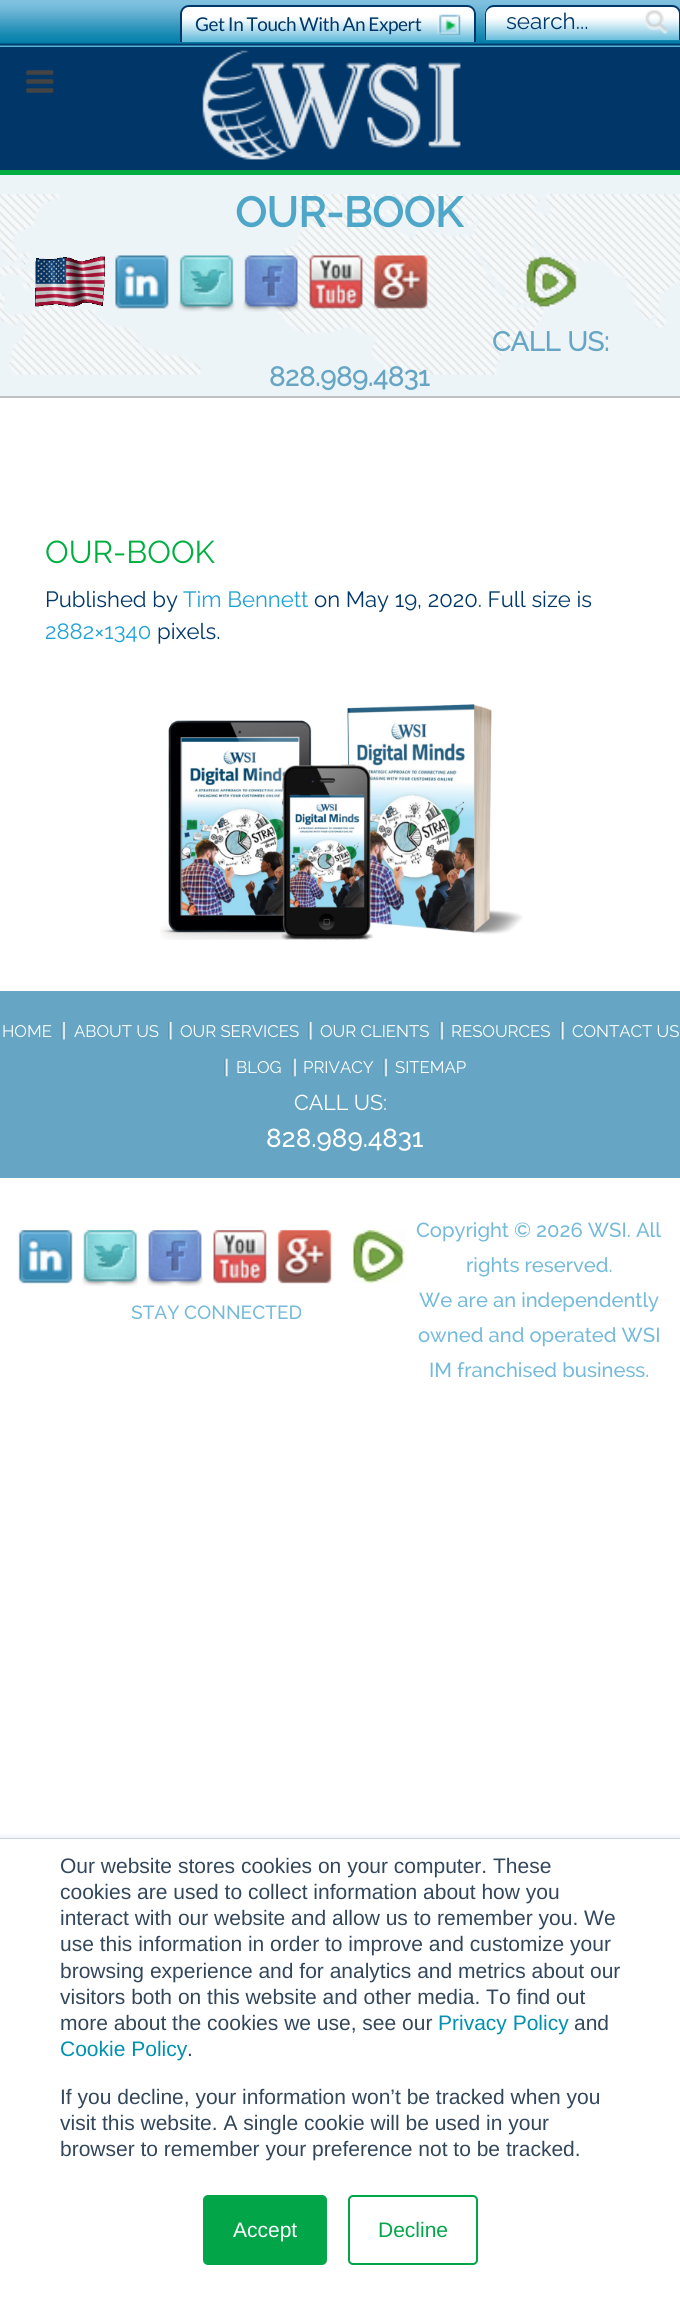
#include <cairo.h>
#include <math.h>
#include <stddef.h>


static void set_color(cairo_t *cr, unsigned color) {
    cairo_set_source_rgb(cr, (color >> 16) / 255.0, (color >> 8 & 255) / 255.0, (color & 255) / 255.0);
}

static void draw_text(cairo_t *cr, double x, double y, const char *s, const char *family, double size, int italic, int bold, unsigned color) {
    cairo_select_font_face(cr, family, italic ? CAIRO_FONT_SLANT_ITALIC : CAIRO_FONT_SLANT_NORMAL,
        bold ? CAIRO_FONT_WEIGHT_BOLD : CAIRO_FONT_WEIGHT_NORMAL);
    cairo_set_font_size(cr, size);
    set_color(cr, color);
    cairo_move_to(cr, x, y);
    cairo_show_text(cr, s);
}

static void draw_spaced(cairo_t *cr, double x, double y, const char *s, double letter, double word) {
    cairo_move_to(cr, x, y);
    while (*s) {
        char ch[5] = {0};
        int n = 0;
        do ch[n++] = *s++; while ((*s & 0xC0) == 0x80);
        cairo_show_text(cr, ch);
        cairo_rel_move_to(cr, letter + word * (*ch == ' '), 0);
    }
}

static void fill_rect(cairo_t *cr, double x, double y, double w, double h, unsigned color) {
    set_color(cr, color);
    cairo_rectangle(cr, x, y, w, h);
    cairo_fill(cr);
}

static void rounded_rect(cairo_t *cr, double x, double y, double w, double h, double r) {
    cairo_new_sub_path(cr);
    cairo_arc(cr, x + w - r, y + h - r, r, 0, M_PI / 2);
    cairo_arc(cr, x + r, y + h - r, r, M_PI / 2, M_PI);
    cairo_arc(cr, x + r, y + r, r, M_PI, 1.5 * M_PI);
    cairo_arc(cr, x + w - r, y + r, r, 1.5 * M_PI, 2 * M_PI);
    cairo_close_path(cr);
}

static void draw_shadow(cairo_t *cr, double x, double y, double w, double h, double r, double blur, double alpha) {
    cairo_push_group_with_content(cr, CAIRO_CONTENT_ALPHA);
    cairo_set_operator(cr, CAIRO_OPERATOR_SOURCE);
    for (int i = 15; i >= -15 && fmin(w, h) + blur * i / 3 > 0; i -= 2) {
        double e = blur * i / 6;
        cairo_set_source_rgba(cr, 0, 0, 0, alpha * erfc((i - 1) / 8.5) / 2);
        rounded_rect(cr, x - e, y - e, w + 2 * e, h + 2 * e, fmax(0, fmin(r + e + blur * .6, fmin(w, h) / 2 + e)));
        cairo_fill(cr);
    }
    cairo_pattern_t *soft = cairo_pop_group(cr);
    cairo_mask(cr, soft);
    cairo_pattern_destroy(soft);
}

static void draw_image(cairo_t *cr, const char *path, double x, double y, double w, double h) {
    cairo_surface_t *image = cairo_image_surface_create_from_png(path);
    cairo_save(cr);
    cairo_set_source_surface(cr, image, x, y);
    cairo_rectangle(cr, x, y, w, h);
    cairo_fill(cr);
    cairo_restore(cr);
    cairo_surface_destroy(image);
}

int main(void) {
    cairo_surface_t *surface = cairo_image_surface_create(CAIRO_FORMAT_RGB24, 680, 2298);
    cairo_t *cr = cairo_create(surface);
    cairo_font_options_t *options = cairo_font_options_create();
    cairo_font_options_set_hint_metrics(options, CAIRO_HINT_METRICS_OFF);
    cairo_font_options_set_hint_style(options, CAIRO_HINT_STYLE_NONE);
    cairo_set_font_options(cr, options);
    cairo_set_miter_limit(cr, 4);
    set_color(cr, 0xFFFFFF);
    cairo_paint(cr);
    draw_image(cr, "assets/img1.png", 0, 0, 680, 47);
    draw_image(cr, "assets/img2.png", 180, 7, 296, 35);
    set_color(cr, 0x003768);
    cairo_set_fill_rule(cr, CAIRO_FILL_RULE_EVEN_ODD);
    cairo_new_path(cr);
    cairo_move_to(cr, 189, 5);
    cairo_line_to(cr, 467, 5);
    cairo_curve_to(cr, 472, 5, 476, 9, 476, 14);
    cairo_line_to(cr, 476, 42);
    cairo_line_to(cr, 180, 42);
    cairo_line_to(cr, 180, 14);
    cairo_curve_to(cr, 180, 9, 184, 5, 189, 5);
    cairo_close_path(cr);
    cairo_move_to(cr, 189, 7);
    cairo_line_to(cr, 467, 7);
    cairo_curve_to(cr, 471, 7, 474, 10, 474, 14);
    cairo_line_to(cr, 474, 42);
    cairo_line_to(cr, 182, 42);
    cairo_line_to(cr, 182, 14);
    cairo_curve_to(cr, 182, 10, 185, 7, 189, 7);
    cairo_close_path(cr);
    cairo_fill(cr);
    cairo_select_font_face(cr, "Lato", CAIRO_FONT_SLANT_NORMAL, CAIRO_FONT_WEIGHT_NORMAL);
    cairo_set_font_size(cr, 19);
    draw_spaced(cr, 195, 31, "Get In Touch With An Expert", -0.45, 0);
    draw_image(cr, "assets/img3.png", 437, 14, 24, 21);
    draw_image(cr, "assets/img4.png", 484, 7, 196, 34);
    cairo_new_path(cr);
    cairo_move_to(cr, 494, 5);
    cairo_line_to(cr, 672, 5);
    cairo_curve_to(cr, 677, 5, 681, 9, 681, 14);
    cairo_line_to(cr, 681, 40);
    cairo_line_to(cr, 485, 40);
    cairo_line_to(cr, 485, 14);
    cairo_curve_to(cr, 485, 9, 489, 5, 494, 5);
    cairo_close_path(cr);
    cairo_move_to(cr, 494, 7);
    cairo_line_to(cr, 672, 7);
    cairo_curve_to(cr, 676, 7, 679, 10, 679, 14);
    cairo_line_to(cr, 679, 40);
    cairo_line_to(cr, 486, 40);
    cairo_line_to(cr, 486, 14);
    cairo_curve_to(cr, 486, 10, 490, 7, 494, 7);
    cairo_close_path(cr);
    cairo_fill(cr);
    draw_image(cr, "assets/img5.png", 645, 10, 23, 24);
    draw_text(cr, 506, 29, "search...", "Raleway Thin", 22.5, 0, 0, 0x003768);
    fill_rect(cr, 0, 47, 680, 123, 0x003768);
    draw_image(cr, "assets/img6.png", 26, 70, 28, 23);
    draw_image(cr, "assets/img7.png", 202, 50, 259, 110);
    fill_rect(cr, 0, 170, 680, 5, 0x00AE42);
    fill_rect(cr, 0, 175, 680, 221, 0xEDF4F7);
    draw_image(cr, "assets/img8.png", 0, 194, 680, 181);
    fill_rect(cr, 0, 396, 680, 2, 0xBFC0C2);
    draw_text(cr, 235, 227, "OUR-BOOK", "Raleway", 42, 0, 1, 0x4EA6C9);
    draw_image(cr, "assets/img9.png", 35, 256, 70, 51);
    draw_image(cr, "assets/img10.png", 115, 255, 54, 54);
    draw_image(cr, "assets/img11.png", 178, 255, 57, 57);
    draw_image(cr, "assets/img12.png", 243, 255, 56, 57);
    draw_image(cr, "assets/img13.png", 309, 255, 54, 54);
    draw_image(cr, "assets/img14.png", 374, 255, 54, 54);
    draw_image(cr, "assets/img15.png", 526, 256, 51, 51);
    draw_text(cr, 492, 351, "CALL US:", "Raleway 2", 27, 0, 1, 0x66A6C4);
    draw_text(cr, 269, 386, "828.989.4831", "Raleway 2", 27, 0, 1, 0x66A6C4);
    draw_text(cr, 45, 563, "OUR-BOOK", "Raleway Thin", 31.5, 0, 0, 0x00AE42);
    draw_text(cr, 45, 607, "Published by", "Raleway Thin", 22.1, 0, 0, 0x003768);
    draw_text(cr, 183, 607, "Tim Bennett", "Raleway Thin", 22.1, 0, 0, 0x1FA2D6);
    draw_text(cr, 314, 607, "on May 19, 2020. Full size is", "Raleway Thin", 22.1, 0, 0, 0x003768);
    draw_text(cr, 45, 639, "2882×1340", "Raleway Thin", 22.1, 0, 0, 0x1FA2D6);
    draw_text(cr, 157, 639, "pixels.", "Raleway Thin", 22.1, 0, 0, 0x003768);
    draw_image(cr, "assets/img16.png", 160, 704, 363, 236);
    fill_rect(cr, 0, 991, 680, 187, 0x66A6C4);
    draw_text(cr, 2, 1037, "HOME", "Raleway Thin", 16.75, 0, 0, 0xFFFFFF);
    draw_image(cr, "assets/img17.png", 61, 1022, 4, 18);
    draw_text(cr, 74, 1037, "ABOUT US", "Raleway Thin", 16.75, 0, 0, 0xFFFFFF);
    draw_image(cr, "assets/img18.png", 168, 1022, 4, 18);
    draw_text(cr, 180, 1037, "OUR SERVICES", "Raleway Thin", 16.75, 0, 0, 0xFFFFFF);
    draw_image(cr, "assets/img18.png", 308, 1022, 4, 18);
    draw_text(cr, 320, 1037, "OUR CLIENTS", "Raleway Thin", 16.75, 0, 0, 0xFFFFFF);
    draw_image(cr, "assets/img17.png", 439, 1022, 4, 18);
    draw_text(cr, 451, 1037, "RESOURCES", "Raleway Thin", 16.75, 0, 0, 0xFFFFFF);
    draw_image(cr, "assets/img18.png", 560, 1022, 4, 18);
    draw_text(cr, 572, 1037, "CONTACT US", "Raleway Thin", 16.75, 0, 0, 0xFFFFFF);
    draw_image(cr, "assets/img19.png", 224, 1058, 4, 19);
    draw_text(cr, 236, 1073, "BLOG", "Raleway Thin", 16.75, 0, 0, 0xFFFFFF);
    draw_image(cr, "assets/img20.png", 292, 1058, 4, 19);
    draw_text(cr, 303, 1073, "PRIVACY", "Raleway Thin", 16.75, 0, 0, 0xFFFFFF);
    draw_image(cr, "assets/img20.png", 383, 1058, 4, 19);
    draw_text(cr, 395, 1073, "SITEMAP", "Raleway Thin", 16.75, 0, 0, 0xFFFFFF);
    draw_text(cr, 294, 1110, "CALL US:", "Raleway Thin", 21.5, 0, 0, 0xFFFFFF);
    draw_text(cr, 266, 1147, "828.989.4831", "Raleway Medium", 26, 0, 0, 0xFFFFFF);
    draw_image(cr, "assets/img21.png", 18, 1230, 55, 54);
    draw_image(cr, "assets/img22.png", 82, 1230, 56, 56);
    draw_image(cr, "assets/img23.png", 147, 1230, 56, 56);
    draw_image(cr, "assets/img24.png", 213, 1230, 54, 54);
    draw_image(cr, "assets/img25.png", 277, 1230, 55, 54);
    draw_image(cr, "assets/img26.png", 350, 1230, 56, 53);
    draw_text(cr, 131, 1319, "STAY CONNECTED", "Raleway Medium", 19, 0, 0, 0x75BADA);
    draw_text(cr, 416, 1237, "Copyright © 2026 WSI. All", "Raleway Medium", 20.25, 0, 0, 0x75BADA);
    draw_text(cr, 466, 1272, "rights reserved.", "Raleway Medium", 20.25, 0, 0, 0x75BADA);
    draw_text(cr, 419, 1307, "We are an independently", "Raleway Medium", 20.25, 0, 0, 0x75BADA);
    draw_text(cr, 418, 1342, "owned and operated WSI", "Raleway Medium", 20.25, 0, 0, 0x75BADA);
    draw_text(cr, 429, 1377, "IM franchised business.", "Raleway Medium", 20.25, 0, 0, 0x75BADA);
    set_color(cr, 0xEAF0F6);
    draw_shadow(cr, 0, 1836, 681, 462, 0, 2.5, 1);
    fill_rect(cr, 0, 1838, 680, 1, 0xCBD6E2);
    fill_rect(cr, 0, 1839, 680, 459, 0xFFFFFF);
    draw_text(cr, 60, 1873, "Our website stores cookies on your computer. These", "Liberation Sans", 21, 0, 0, 0x33475B);
    draw_text(cr, 60, 1899, "cookies are used to collect information about how you", "Liberation Sans", 21, 0, 0, 0x33475B);
    draw_text(cr, 60, 1925, "interact with our website and allow us to remember you. We", "Liberation Sans", 21, 0, 0, 0x33475B);
    draw_text(cr, 60, 1951, "use this information in order to improve and customize your", "Liberation Sans", 21, 0, 0, 0x33475B);
    draw_text(cr, 60, 1978, "browsing experience and for analytics and metrics about our", "Liberation Sans", 21, 0, 0, 0x33475B);
    draw_text(cr, 60, 2004, "visitors both on this website and other media. To find out", "Liberation Sans", 21, 0, 0, 0x33475B);
    draw_text(cr, 60, 2030, "more about the cookies we use, see our", "Liberation Sans", 21, 0, 0, 0x33475B);
    draw_text(cr, 438, 2030, "Privacy Policy", "Liberation Sans", 21, 0, 0, 0x0091AE);
    draw_text(cr, 574, 2030, "and", "Liberation Sans", 21, 0, 0, 0x33475B);
    draw_text(cr, 60, 2056, "Cookie Policy", "Liberation Sans", 21, 0, 0, 0x0091AE);
    draw_text(cr, 187, 2056, ".", "Liberation Sans", 21, 0, 0, 0x33475B);
    draw_text(cr, 60, 2104, "If you decline, your information won’t be tracked when you", "Liberation Sans", 21, 0, 0, 0x33475B);
    draw_text(cr, 60, 2130, "visit this website. A single cookie will be used in your", "Liberation Sans", 21, 0, 0, 0x33475B);
    draw_text(cr, 60, 2156, "browser to remember your preference not to be tracked.", "Liberation Sans", 21, 0, 0, 0x33475B);
    set_color(cr, 0x03A549);
    rounded_rect(cr, 204, 2196, 122, 68, 4);
    cairo_fill_preserve(cr);
    cairo_stroke(cr);
    draw_text(cr, 233, 2237, "Accept", "Liberation Sans", 21, 0, 0, 0xFFFFFF);
    rounded_rect(cr, 349, 2196, 128, 68, 4);
    set_color(cr, 0x03A549);
    cairo_stroke(cr);
    draw_text(cr, 378, 2237, "Decline", "Liberation Sans", 21, 0, 0, 0x03A549);
    cairo_surface_write_to_png(surface, "output.png");
    cairo_font_options_destroy(options);
    cairo_destroy(cr);
    cairo_surface_destroy(surface);
    return 0;
}
